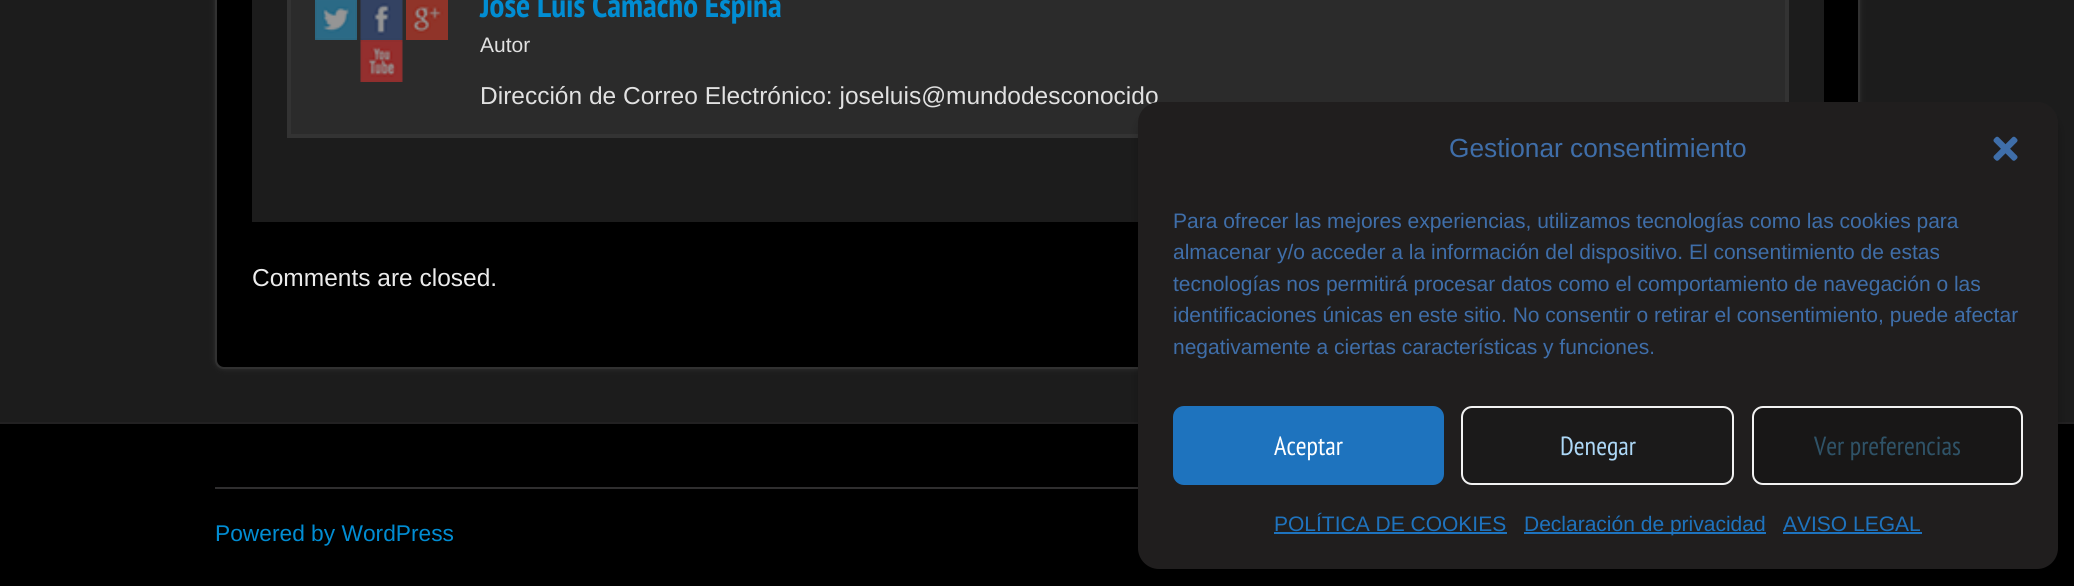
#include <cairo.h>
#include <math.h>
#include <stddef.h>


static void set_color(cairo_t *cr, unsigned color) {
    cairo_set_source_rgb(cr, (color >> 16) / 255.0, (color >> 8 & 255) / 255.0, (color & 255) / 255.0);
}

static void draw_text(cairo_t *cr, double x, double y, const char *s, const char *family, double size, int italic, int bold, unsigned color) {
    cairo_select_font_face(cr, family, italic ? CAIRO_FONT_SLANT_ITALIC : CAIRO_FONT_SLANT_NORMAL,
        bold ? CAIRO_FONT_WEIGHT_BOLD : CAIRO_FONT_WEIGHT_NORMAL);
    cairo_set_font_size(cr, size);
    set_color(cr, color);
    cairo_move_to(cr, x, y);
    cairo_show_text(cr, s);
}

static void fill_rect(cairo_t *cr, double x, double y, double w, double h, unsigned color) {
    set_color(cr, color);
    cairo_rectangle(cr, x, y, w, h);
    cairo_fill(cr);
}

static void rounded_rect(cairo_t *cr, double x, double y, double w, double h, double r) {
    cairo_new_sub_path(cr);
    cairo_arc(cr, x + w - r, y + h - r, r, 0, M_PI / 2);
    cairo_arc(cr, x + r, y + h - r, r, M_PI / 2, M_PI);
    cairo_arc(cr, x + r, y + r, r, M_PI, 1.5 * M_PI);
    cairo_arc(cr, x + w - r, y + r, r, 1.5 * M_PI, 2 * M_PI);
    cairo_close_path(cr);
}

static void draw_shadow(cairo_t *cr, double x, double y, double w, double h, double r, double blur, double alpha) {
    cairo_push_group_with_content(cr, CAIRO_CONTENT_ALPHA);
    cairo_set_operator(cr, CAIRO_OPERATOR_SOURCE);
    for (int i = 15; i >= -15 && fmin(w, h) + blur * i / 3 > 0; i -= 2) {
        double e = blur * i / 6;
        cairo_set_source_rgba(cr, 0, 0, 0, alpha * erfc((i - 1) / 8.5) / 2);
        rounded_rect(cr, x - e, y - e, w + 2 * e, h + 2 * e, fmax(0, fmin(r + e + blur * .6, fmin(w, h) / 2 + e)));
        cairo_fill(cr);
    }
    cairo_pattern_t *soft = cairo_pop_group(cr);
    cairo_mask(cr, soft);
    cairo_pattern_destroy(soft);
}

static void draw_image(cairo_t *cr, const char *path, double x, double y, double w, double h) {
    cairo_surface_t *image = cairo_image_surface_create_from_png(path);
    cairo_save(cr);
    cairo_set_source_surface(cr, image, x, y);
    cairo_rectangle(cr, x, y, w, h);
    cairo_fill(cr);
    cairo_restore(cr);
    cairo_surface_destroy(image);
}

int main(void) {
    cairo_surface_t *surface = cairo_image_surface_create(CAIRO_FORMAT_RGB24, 2074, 586);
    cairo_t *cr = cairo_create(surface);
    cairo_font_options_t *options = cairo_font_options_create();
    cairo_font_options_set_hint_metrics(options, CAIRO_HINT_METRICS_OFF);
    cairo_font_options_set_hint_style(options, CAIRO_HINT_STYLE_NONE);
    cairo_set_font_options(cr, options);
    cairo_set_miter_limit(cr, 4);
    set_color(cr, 0x1C1C1C);
    cairo_paint(cr);
    set_color(cr, 0x313131);
    draw_shadow(cr, 215, -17, 1645, 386, 9, 2.5, 1);
    set_color(cr, 0x000000);
    rounded_rect(cr, 216, -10, 1643, 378, 8);
    cairo_fill_preserve(cr);
    set_color(cr, 0x313131);
    cairo_stroke(cr);
    fill_rect(cr, 252, 0, 1572, 222, 0x1C1C1C);
    set_color(cr, 0x2B2B2B);
    cairo_rectangle(cr, 289, -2, 1498, 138);
    cairo_fill_preserve(cr);
    set_color(cr, 0x333333);
    cairo_set_line_width(cr, 4);
    cairo_stroke(cr);
    draw_image(cr, "assets/img1.png", 315, 0, 42, 40);
    draw_image(cr, "assets/img2.png", 360, 0, 43, 40);
    draw_image(cr, "assets/img3.png", 406, 0, 42, 40);
    draw_image(cr, "assets/img4.png", 360, 40, 43, 42);
    draw_text(cr, 480, 17, "Jose Luis Camacho Espina", "PT Sans Narrow", 33.25, 0, 1, 0x018DD3);
    draw_text(cr, 480, 52, "Autor", "Liberation Sans", 21, 0, 0, 0xE1E1E1);
    draw_text(cr, 480, 104, "Dirección de Correo Electrónico: joseluis@mundodesconocido", "Liberation Sans", 24.5, 0, 0, 0xE1E1E1);
    draw_text(cr, 252, 286, "Comments are closed.", "Liberation Sans", 24.5, 0, 0, 0xECECEC);
    fill_rect(cr, 0, 424, 2074, 162, 0x000000);
    fill_rect(cr, 0, 422, 2074, 2, 0x222122);
    fill_rect(cr, 215, 487, 923, 2, 0x2F2E2F);
    draw_text(cr, 215, 541, "Powered by WordPress", "Liberation Sans", 22.75, 0, 0, 0x018DD3);
    set_color(cr, 0x000000);
    draw_shadow(cr, 1138, 112, 920, 467, 21, 5, 0.23);
    set_color(cr, 0x201E1E);
    rounded_rect(cr, 1138, 102, 920, 467, 21);
    cairo_fill(cr);
    draw_text(cr, 1449, 157, "Gestionar consentimiento", "Liberation Sans", 26.25, 0, 0, 0x3F6EA9);
    draw_image(cr, "assets/img5.png", 1993, 136, 25, 25);
    draw_text(cr, 1173, 228, "Para ofrecer las mejores experiencias, utilizamos tecnologías como las cookies para", "Liberation Sans", 21, 0, 0, 0x3F6EA9);
    draw_text(cr, 1173, 259, "almacenar y/o acceder a la información del dispositivo. El consentimiento de estas", "Liberation Sans", 21, 0, 0, 0x3F6EA9);
    draw_text(cr, 1173, 291, "tecnologías nos permitirá procesar datos como el comportamiento de navegación o las", "Liberation Sans", 21, 0, 0, 0x3F6EA9);
    draw_text(cr, 1173, 322, "identificaciones únicas en este sitio. No consentir o retirar el consentimiento, puede afectar", "Liberation Sans", 21, 0, 0, 0x3F6EA9);
    draw_text(cr, 1173, 354, "negativamente a ciertas características y funciones.", "Liberation Sans", 21, 0, 0, 0x3F6EA9);
    set_color(cr, 0x1E73BE);
    rounded_rect(cr, 1174, 407, 269, 77, 10);
    cairo_fill_preserve(cr);
    cairo_set_line_width(cr, 2);
    cairo_stroke(cr);
    draw_text(cr, 1274, 455, "Aceptar", "PT Sans Narrow", 26.25, 0, 0, 0xFFFFFF);
    set_color(cr, 0x1B1A1A);
    rounded_rect(cr, 1462, 407, 271, 77, 10);
    cairo_fill_preserve(cr);
    set_color(cr, 0xF2F2F2);
    cairo_stroke(cr);
    draw_text(cr, 1560, 455, "Denegar", "PT Sans Narrow", 26.25, 0, 0, 0xADD8F7);
    set_color(cr, 0x181717);
    rounded_rect(cr, 1753, 407, 269, 77, 10);
    cairo_fill_preserve(cr);
    set_color(cr, 0xF2F2F2);
    cairo_stroke(cr);
    draw_text(cr, 1814, 455, "Ver preferencias", "PT Sans Narrow", 26.25, 0, 0, 0x2F5368);
    draw_text(cr, 1274, 531, "POLÍTICA DE COOKIES", "Liberation Sans", 21, 0, 0, 0x1E73BE);
    fill_rect(cr, 1274, 532, 233, 2, 0x1E73BE);
    fill_rect(cr, 1524, 532, 242, 2, 0x1E73BE);
    draw_text(cr, 1524, 531, "Declaración de privacidad", "Liberation Sans", 21, 0, 0, 0x1E73BE);
    draw_text(cr, 1783, 531, "AVISO LEGAL", "Liberation Sans", 21, 0, 0, 0x1E73BE);
    fill_rect(cr, 1783, 532, 139, 2, 0x1E73BE);
    cairo_surface_write_to_png(surface, "output.png");
    cairo_font_options_destroy(options);
    cairo_destroy(cr);
    cairo_surface_destroy(surface);
    return 0;
}
